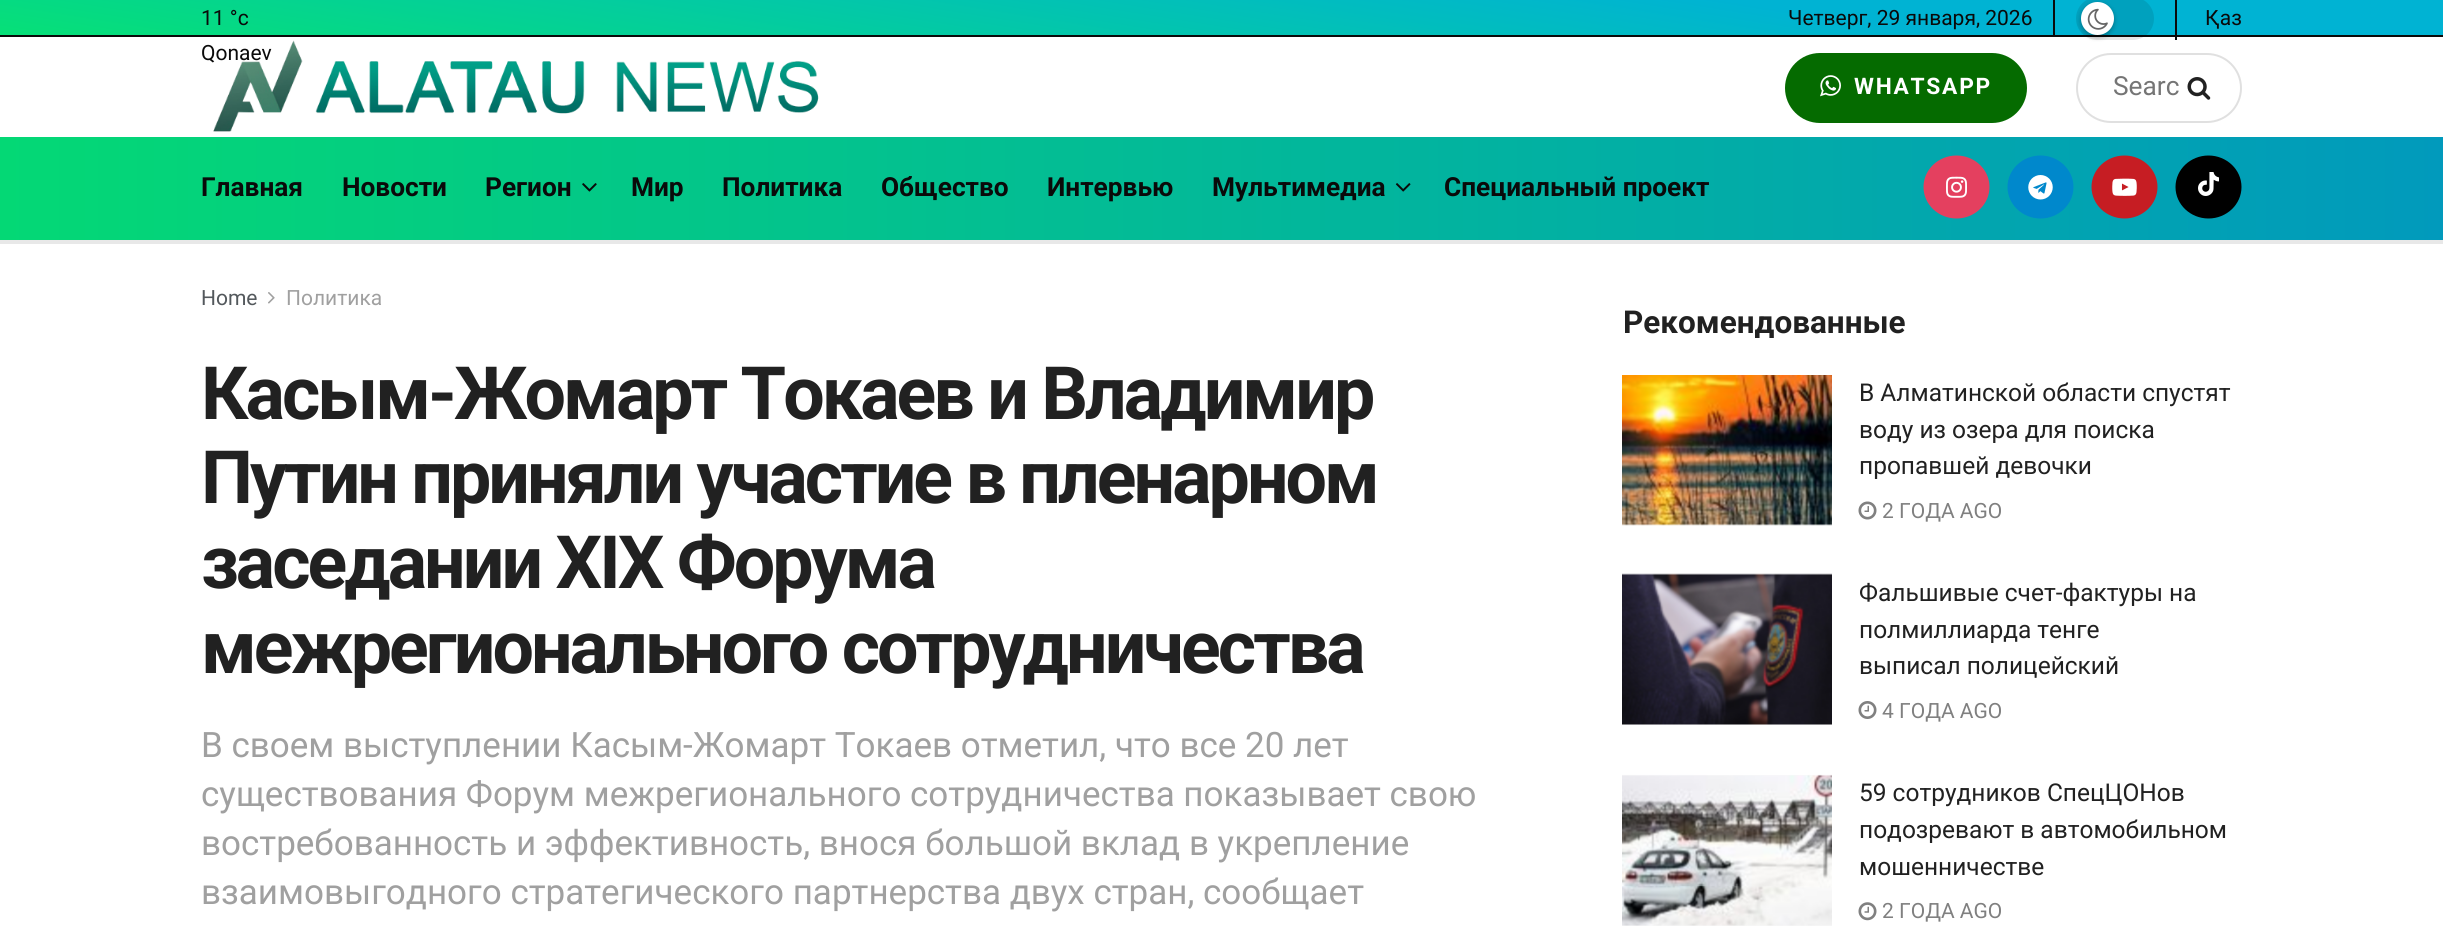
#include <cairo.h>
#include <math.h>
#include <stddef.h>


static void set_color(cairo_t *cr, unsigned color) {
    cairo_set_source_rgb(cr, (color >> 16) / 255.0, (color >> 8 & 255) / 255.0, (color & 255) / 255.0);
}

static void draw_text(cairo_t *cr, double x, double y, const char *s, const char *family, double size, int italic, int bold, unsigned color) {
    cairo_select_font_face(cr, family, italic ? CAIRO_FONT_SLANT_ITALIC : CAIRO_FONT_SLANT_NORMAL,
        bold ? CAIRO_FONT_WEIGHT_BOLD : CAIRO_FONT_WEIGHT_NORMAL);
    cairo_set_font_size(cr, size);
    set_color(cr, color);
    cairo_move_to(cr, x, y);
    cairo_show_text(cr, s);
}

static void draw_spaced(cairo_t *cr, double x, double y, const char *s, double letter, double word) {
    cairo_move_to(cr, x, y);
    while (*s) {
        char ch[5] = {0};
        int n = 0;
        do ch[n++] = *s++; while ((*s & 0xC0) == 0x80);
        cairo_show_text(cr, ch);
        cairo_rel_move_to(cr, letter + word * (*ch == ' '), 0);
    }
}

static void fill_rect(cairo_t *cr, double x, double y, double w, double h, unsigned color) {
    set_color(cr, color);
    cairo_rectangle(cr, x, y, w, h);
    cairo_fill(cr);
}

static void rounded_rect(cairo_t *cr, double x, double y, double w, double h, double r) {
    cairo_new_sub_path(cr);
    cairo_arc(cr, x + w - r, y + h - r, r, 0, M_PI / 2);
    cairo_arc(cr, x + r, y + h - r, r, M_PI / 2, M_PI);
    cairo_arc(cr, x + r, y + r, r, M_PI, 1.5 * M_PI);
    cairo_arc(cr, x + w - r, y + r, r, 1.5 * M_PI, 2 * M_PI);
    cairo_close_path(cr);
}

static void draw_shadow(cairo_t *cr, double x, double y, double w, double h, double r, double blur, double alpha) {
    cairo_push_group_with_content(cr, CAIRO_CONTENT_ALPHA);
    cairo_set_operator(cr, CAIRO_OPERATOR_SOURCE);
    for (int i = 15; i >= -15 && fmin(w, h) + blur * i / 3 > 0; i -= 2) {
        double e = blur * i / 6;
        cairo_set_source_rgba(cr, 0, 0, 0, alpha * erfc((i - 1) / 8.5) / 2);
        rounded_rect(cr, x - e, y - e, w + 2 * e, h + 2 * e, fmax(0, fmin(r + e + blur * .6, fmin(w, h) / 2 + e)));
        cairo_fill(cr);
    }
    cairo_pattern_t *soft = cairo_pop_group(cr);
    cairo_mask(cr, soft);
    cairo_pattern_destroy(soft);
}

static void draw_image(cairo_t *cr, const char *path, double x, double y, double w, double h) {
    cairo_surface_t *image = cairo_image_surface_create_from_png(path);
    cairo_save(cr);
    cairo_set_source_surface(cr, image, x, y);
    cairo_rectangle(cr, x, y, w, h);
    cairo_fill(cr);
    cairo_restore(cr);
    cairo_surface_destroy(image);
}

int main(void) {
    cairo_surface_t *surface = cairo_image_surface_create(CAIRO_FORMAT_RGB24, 2443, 933);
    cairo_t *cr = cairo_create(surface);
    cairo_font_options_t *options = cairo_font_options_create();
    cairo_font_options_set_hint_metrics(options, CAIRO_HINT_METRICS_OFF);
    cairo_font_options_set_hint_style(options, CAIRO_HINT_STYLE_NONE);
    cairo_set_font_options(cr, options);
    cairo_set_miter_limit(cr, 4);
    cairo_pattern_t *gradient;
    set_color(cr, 0xFFFFFF);
    cairo_paint(cr);
    gradient = cairo_pattern_create_linear(1254, -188, 1189, 223);
    cairo_pattern_add_color_stop_rgba(gradient, 0.27, 0, 0.702, 0.827, 1);
    cairo_pattern_add_color_stop_rgba(gradient, 1, 0.024, 0.878, 0.467, 1);
    cairo_set_source(cr, gradient);
    cairo_pattern_destroy(gradient);
    cairo_rectangle(cr, 0, 0, 2443, 35);
    cairo_fill(cr);
    fill_rect(cr, 0, 35, 2443, 2, 0x0A0A0A);
    draw_text(cr, 201, 25, "11 °c", "Roboto", 21, 0, 0, 0x0A0A0A);
    draw_image(cr, "assets/img2.png", 213, 40, 606, 92);
    draw_text(cr, 201, 60, "Qonaev", "Roboto", 21, 0, 0, 0x0A0A0A);
    fill_rect(cr, 2053, 0, 2, 35, 0x0A0A0A);
    draw_text(cr, 1788, 25, "Четверг, 29 января, 2026", "Roboto", 21, 0, 0, 0x0A0A0A);
    fill_rect(cr, 2175, 0, 2, 40, 0x0A0A0A);
    cairo_set_source_rgba(cr, 0, 0, 0, 0.1);
    rounded_rect(cr, 2076, -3, 78, 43, 21.5);
    cairo_fill(cr);
    set_color(cr, 0x000000);
    draw_shadow(cr, 2081, 4, 33, 33, 16.5, 2.5, 0.3);
    set_color(cr, 0xFFFFFF);
    cairo_arc(cr, 2097.5, 18.5, 16.5, 0, 2 * M_PI);
    cairo_fill(cr);
    draw_image(cr, "assets/img1.png", 2087, 8, 21, 22);
    draw_text(cr, 2205, 25, "Қаз", "Roboto", 21, 0, 0, 0x0A0A0A);
    set_color(cr, 0x056B00);
    rounded_rect(cr, 1785, 53, 242, 70, 35);
    cairo_fill(cr);
    draw_image(cr, "assets/img3.png", 1820, 75, 21, 22);
    cairo_select_font_face(cr, "Roboto", CAIRO_FONT_SLANT_NORMAL, CAIRO_FONT_WEIGHT_BOLD);
    cairo_set_font_size(cr, 22.75);
    set_color(cr, 0xFFFFFF);
    draw_spaced(cr, 1854, 94, "WHATSAPP", 1.75, 0);
    rounded_rect(cr, 2077, 54, 164, 68, 34);
    set_color(cr, 0xE0E0E0);
    cairo_stroke(cr);
    draw_text(cr, 2113, 95, "Searc", "Roboto", 26.25, 0, 0, 0x757575);
    draw_image(cr, "assets/img4.png", 2187, 77, 24, 23);
    gradient = cairo_pattern_create_linear(0, 188, 2443, 188);
    cairo_pattern_add_color_stop_rgba(gradient, 0, 0.016, 0.847, 0.459, 1);
    cairo_pattern_add_color_stop_rgba(gradient, 1, 0.004, 0.604, 0.737, 1);
    cairo_set_source(cr, gradient);
    cairo_pattern_destroy(gradient);
    cairo_rectangle(cr, 0, 137, 2443, 103);
    cairo_fill(cr);
    fill_rect(cr, 0, 240, 2443, 4, 0xE8E8E8);
    draw_text(cr, 201, 196, "Главная", "Roboto", 26.25, 0, 1, 0x0A0A0A);
    draw_text(cr, 342, 196, "Новости", "Roboto", 26.25, 0, 1, 0x0A0A0A);
    draw_text(cr, 485, 196, "Регион", "Roboto", 26.25, 0, 1, 0x0A0A0A);
    draw_image(cr, "assets/img5.png", 582, 183, 15, 9);
    draw_text(cr, 631, 196, "Мир", "Roboto", 26.25, 0, 1, 0x0A0A0A);
    draw_text(cr, 722, 196, "Политика", "Roboto", 26.25, 0, 1, 0x0A0A0A);
    draw_text(cr, 881, 196, "Общество", "Roboto", 26.25, 0, 1, 0x0A0A0A);
    draw_text(cr, 1047, 196, "Интервью", "Roboto", 26.25, 0, 1, 0x0A0A0A);
    draw_text(cr, 1212, 196, "Мультимедиа", "Roboto", 26.25, 0, 1, 0x0A0A0A);
    draw_image(cr, "assets/img6.png", 1395, 183, 16, 9);
    draw_text(cr, 1444, 196, "Специальный проект", "Roboto", 26.25, 0, 1, 0x0A0A0A);
    set_color(cr, 0xE4405F);
    cairo_new_path(cr);
    cairo_move_to(cr, 1956.5, 155.5);
    cairo_curve_to(cr, 1974.5, 155.5, 1989.5, 169.5, 1989.5, 187);
    cairo_curve_to(cr, 1989.5, 204.5, 1974.5, 218.5, 1956.5, 218.5);
    cairo_curve_to(cr, 1938.5, 218.5, 1923.5, 204.5, 1923.5, 187);
    cairo_curve_to(cr, 1923.5, 169.5, 1938.5, 155.5, 1956.5, 155.5);
    cairo_close_path(cr);
    cairo_fill(cr);
    draw_image(cr, "assets/img7.png", 1946, 176, 21, 22);
    set_color(cr, 0x0088CC);
    cairo_new_path(cr);
    cairo_move_to(cr, 2040.5, 155.5);
    cairo_curve_to(cr, 2058.5, 155.5, 2073.5, 169.5, 2073.5, 187);
    cairo_curve_to(cr, 2073.5, 204.5, 2058.5, 218.5, 2040.5, 218.5);
    cairo_curve_to(cr, 2022.5, 218.5, 2007.5, 204.5, 2007.5, 187);
    cairo_curve_to(cr, 2007.5, 169.5, 2022.5, 155.5, 2040.5, 155.5);
    cairo_close_path(cr);
    cairo_fill(cr);
    draw_image(cr, "assets/img8.png", 2028, 175, 25, 25);
    set_color(cr, 0xC61D23);
    cairo_new_path(cr);
    cairo_move_to(cr, 2124.5, 155.5);
    cairo_curve_to(cr, 2142.5, 155.5, 2157.5, 169.5, 2157.5, 187);
    cairo_curve_to(cr, 2157.5, 204.5, 2142.5, 218.5, 2124.5, 218.5);
    cairo_curve_to(cr, 2106.5, 218.5, 2091.5, 204.5, 2091.5, 187);
    cairo_curve_to(cr, 2091.5, 169.5, 2106.5, 155.5, 2124.5, 155.5);
    cairo_close_path(cr);
    cairo_fill(cr);
    draw_image(cr, "assets/img9.png", 2112, 178, 25, 18);
    set_color(cr, 0x000000);
    cairo_new_path(cr);
    cairo_move_to(cr, 2208.5, 155.5);
    cairo_curve_to(cr, 2226.5, 155.5, 2241.5, 169.5, 2241.5, 187);
    cairo_curve_to(cr, 2241.5, 204.5, 2226.5, 218.5, 2208.5, 218.5);
    cairo_curve_to(cr, 2190.5, 218.5, 2175.5, 204.5, 2175.5, 187);
    cairo_curve_to(cr, 2175.5, 169.5, 2190.5, 155.5, 2208.5, 155.5);
    cairo_close_path(cr);
    cairo_fill(cr);
    draw_image(cr, "assets/img10.png", 2198, 172, 21, 24);
    draw_text(cr, 201, 305, "Home", "Roboto", 21, 0, 0, 0x53585C);
    draw_image(cr, "assets/img11.png", 268, 292, 7, 12);
    draw_text(cr, 286, 305, "Политика", "Roboto", 21, 0, 0, 0xA0A0A0);
    cairo_select_font_face(cr, "Roboto", CAIRO_FONT_SLANT_NORMAL, CAIRO_FONT_WEIGHT_BOLD);
    cairo_set_font_size(cr, 73.5);
    set_color(cr, 0x212121);
    draw_spaced(cr, 201, 419, "Касым-Жомарт Токаев и Владимир", -2.95, 0);
    draw_spaced(cr, 201, 503, "Путин приняли участие в пленарном", -2.95, 0);
    draw_spaced(cr, 201, 588, "заседании ХIХ Форума", -2.95, 0);
    draw_spaced(cr, 201, 673, "межрегионального сотрудничества", -2.95, 0);
    draw_text(cr, 201, 757, "В своем выступлении Касым-Жомарт Токаев отметил, что все 20 лет", "Roboto", 35, 0, 0, 0xA0A0A0);
    draw_text(cr, 201, 806, "существования Форум межрегионального сотрудничества показывает свою", "Roboto", 35, 0, 0, 0xA0A0A0);
    draw_text(cr, 201, 855, "востребованность и эффективность, внося большой вклад в укрепление", "Roboto", 35, 0, 0, 0xA0A0A0);
    draw_text(cr, 201, 904, "взаимовыгодного стратегического партнерства двух стран, сообщает", "Roboto", 35, 0, 0, 0xA0A0A0);
    draw_text(cr, 1623, 333, "Рекомендованные", "Roboto", 31.5, 0, 1, 0x212121);
    fill_rect(cr, 1622, 524, 210, 1, 0xF7F7F7);
    draw_image(cr, "assets/img12.png", 1622, 375, 210, 151);
    draw_text(cr, 1859, 401, "В Алматинской области спустят", "Roboto", 24.5, 0, 0, 0x212121);
    draw_text(cr, 1859, 438, "воду из озера для поиска", "Roboto", 24.5, 0, 0, 0x212121);
    draw_text(cr, 1859, 474, "пропавшей девочки", "Roboto", 24.5, 0, 0, 0x212121);
    draw_image(cr, "assets/img13.png", 1858, 501, 19, 19);
    draw_text(cr, 1882, 518, "2 ГОДА AGO", "Roboto", 21, 0, 0, 0x808080);
    fill_rect(cr, 1622, 574, 210, 151, 0xF7F7F7);
    draw_image(cr, "assets/img14.png", 1622, 573, 210, 152);
    draw_text(cr, 1859, 601, "Фальшивые счет-фактуры на", "Roboto", 24.5, 0, 0, 0x212121);
    draw_text(cr, 1859, 638, "полмиллиарда тенге", "Roboto", 24.5, 0, 0, 0x212121);
    draw_text(cr, 1859, 674, "выписал полицейский", "Roboto", 24.5, 0, 0, 0x212121);
    draw_image(cr, "assets/img15.png", 1858, 701, 19, 18);
    draw_text(cr, 1882, 718, "4 ГОДА AGO", "Roboto", 21, 0, 0, 0x808080);
    fill_rect(cr, 1622, 775, 210, 151, 0xF7F7F7);
    draw_image(cr, "assets/img16.png", 1622, 774, 210, 152);
    draw_text(cr, 1859, 801, "59 сотрудников СпецЦОНов", "Roboto", 24.5, 0, 0, 0x212121);
    draw_text(cr, 1859, 838, "подозревают в автомобильном", "Roboto", 24.5, 0, 0, 0x212121);
    draw_text(cr, 1859, 875, "мошенничестве", "Roboto", 24.5, 0, 0, 0x212121);
    draw_image(cr, "assets/img17.png", 1858, 902, 19, 19);
    draw_text(cr, 1882, 918, "2 ГОДА AGO", "Roboto", 21, 0, 0, 0x808080);
    cairo_surface_write_to_png(surface, "output.png");
    cairo_font_options_destroy(options);
    cairo_destroy(cr);
    cairo_surface_destroy(surface);
    return 0;
}
